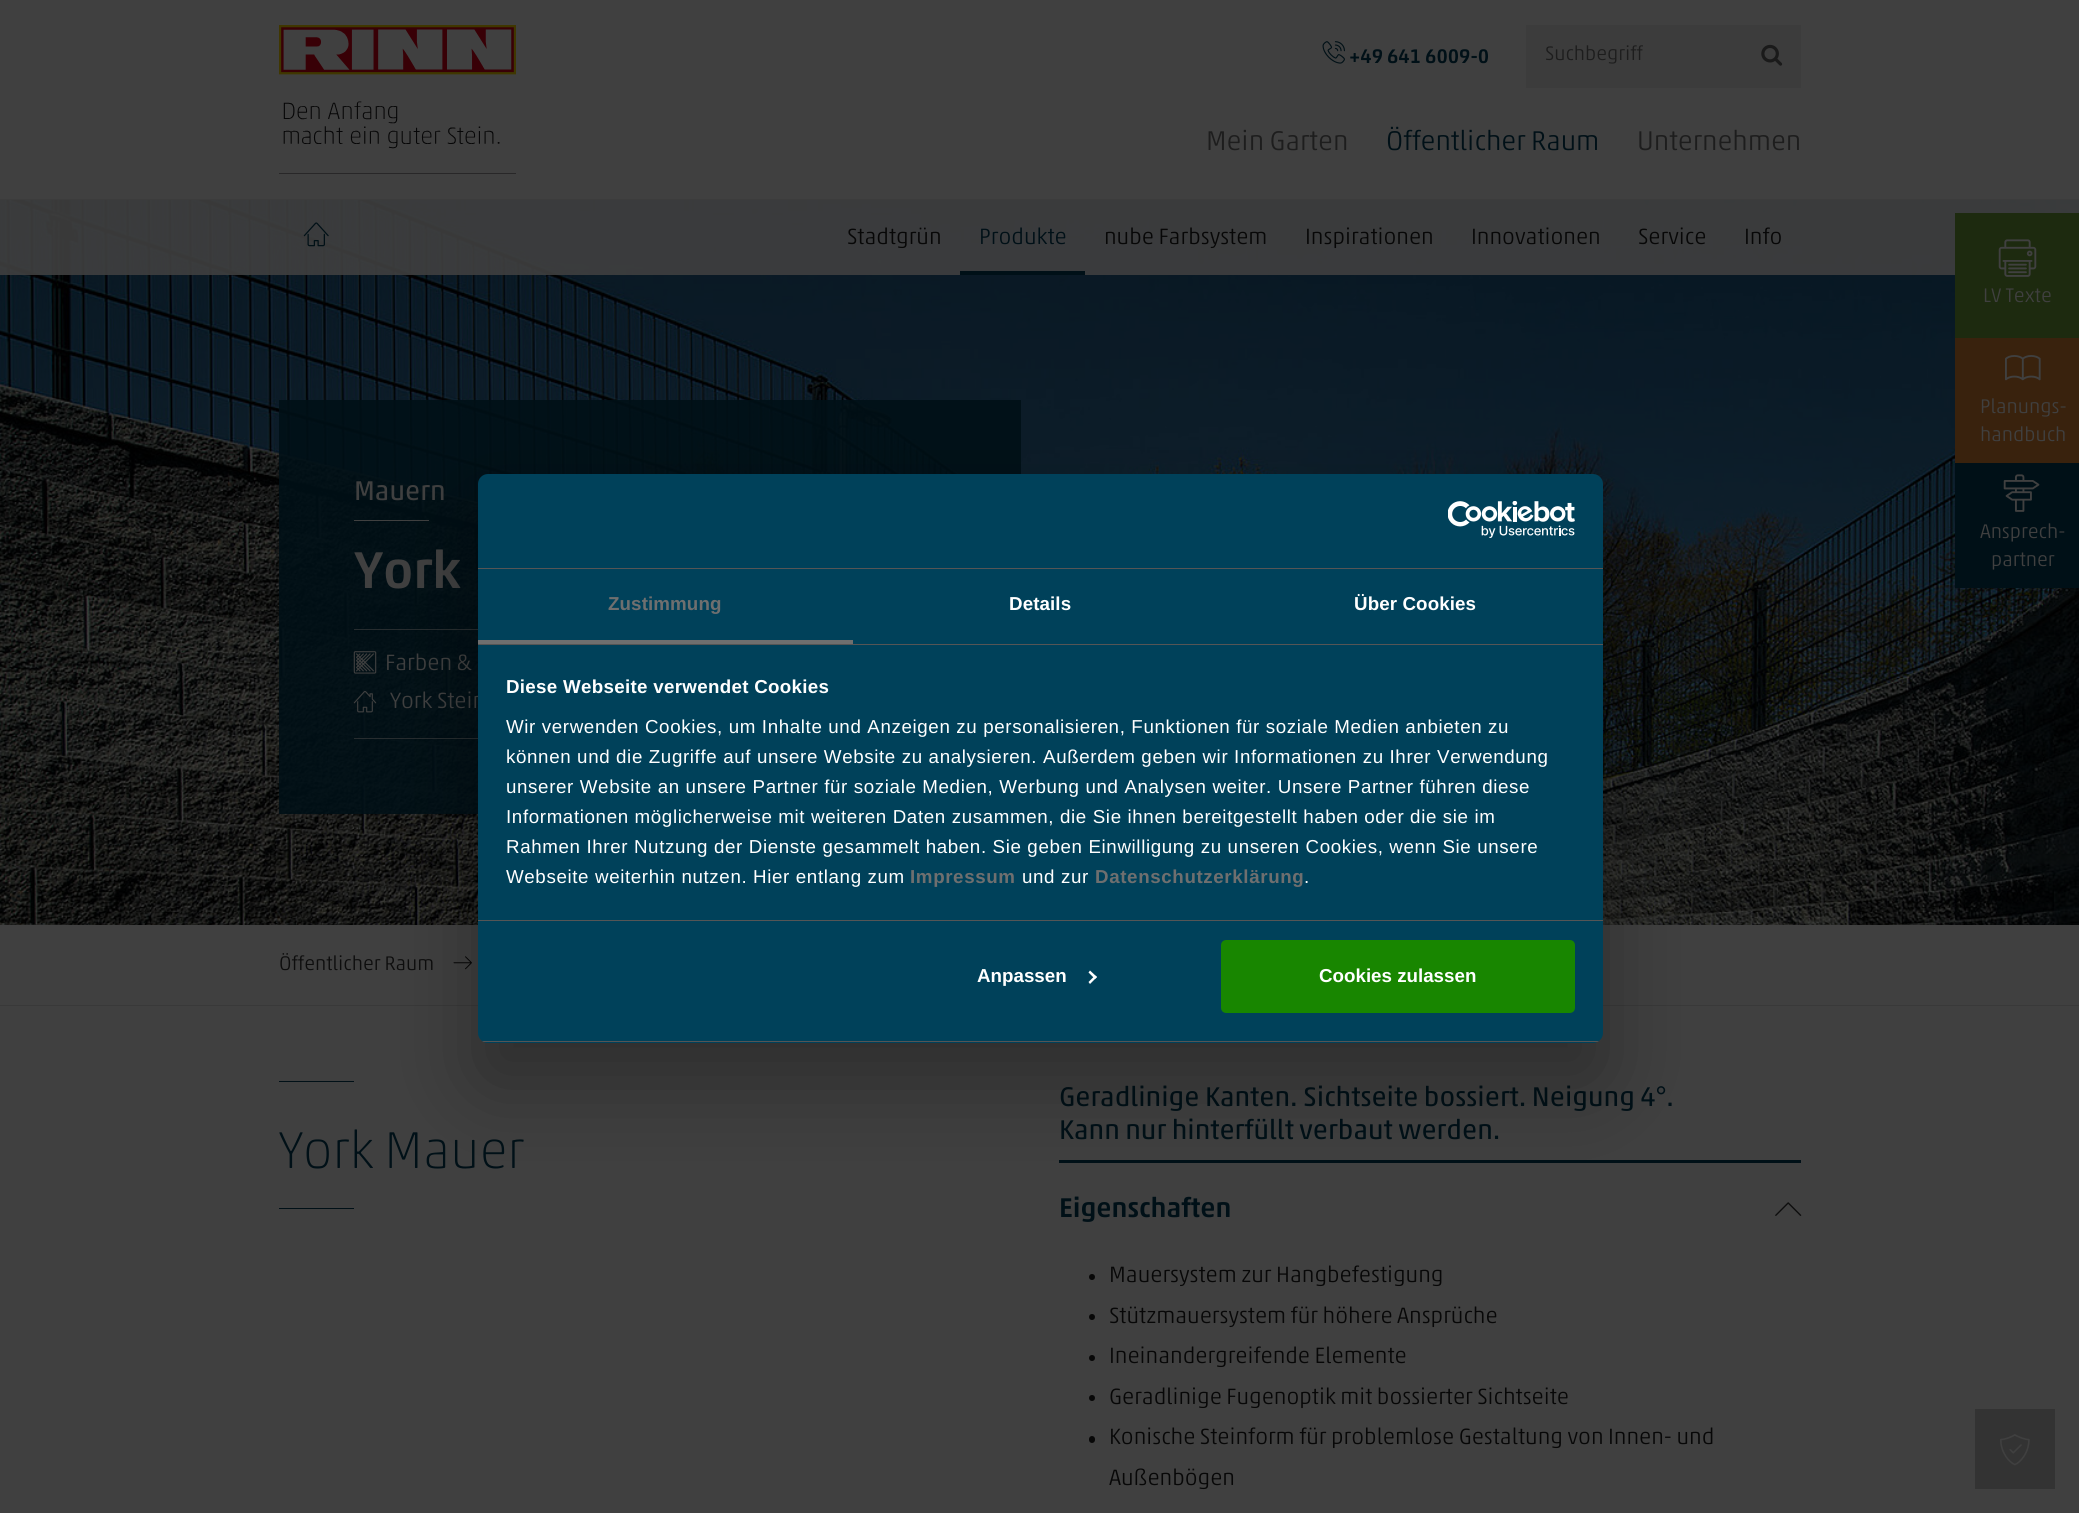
#include <cairo.h>
#include <math.h>
#include <stddef.h>


static void set_color(cairo_t *cr, unsigned color) {
    cairo_set_source_rgb(cr, (color >> 16) / 255.0, (color >> 8 & 255) / 255.0, (color & 255) / 255.0);
}

static void draw_text(cairo_t *cr, double x, double y, const char *s, const char *family, double size, int italic, int bold, unsigned color) {
    cairo_select_font_face(cr, family, italic ? CAIRO_FONT_SLANT_ITALIC : CAIRO_FONT_SLANT_NORMAL,
        bold ? CAIRO_FONT_WEIGHT_BOLD : CAIRO_FONT_WEIGHT_NORMAL);
    cairo_set_font_size(cr, size);
    set_color(cr, color);
    cairo_move_to(cr, x, y);
    cairo_show_text(cr, s);
}

static void draw_spaced(cairo_t *cr, double x, double y, const char *s, double letter, double word) {
    cairo_move_to(cr, x, y);
    while (*s) {
        char ch[5] = {0};
        int n = 0;
        do ch[n++] = *s++; while ((*s & 0xC0) == 0x80);
        cairo_show_text(cr, ch);
        cairo_rel_move_to(cr, letter + word * (*ch == ' '), 0);
    }
}

static void fill_rect(cairo_t *cr, double x, double y, double w, double h, unsigned color) {
    set_color(cr, color);
    cairo_rectangle(cr, x, y, w, h);
    cairo_fill(cr);
}

static void rounded_rect(cairo_t *cr, double x, double y, double w, double h, double r) {
    cairo_new_sub_path(cr);
    cairo_arc(cr, x + w - r, y + h - r, r, 0, M_PI / 2);
    cairo_arc(cr, x + r, y + h - r, r, M_PI / 2, M_PI);
    cairo_arc(cr, x + r, y + r, r, M_PI, 1.5 * M_PI);
    cairo_arc(cr, x + w - r, y + r, r, 1.5 * M_PI, 2 * M_PI);
    cairo_close_path(cr);
}

static void draw_shadow(cairo_t *cr, double x, double y, double w, double h, double r, double blur, double alpha) {
    cairo_push_group_with_content(cr, CAIRO_CONTENT_ALPHA);
    cairo_set_operator(cr, CAIRO_OPERATOR_SOURCE);
    for (int i = 15; i >= -15 && fmin(w, h) + blur * i / 3 > 0; i -= 2) {
        double e = blur * i / 6;
        cairo_set_source_rgba(cr, 0, 0, 0, alpha * erfc((i - 1) / 8.5) / 2);
        rounded_rect(cr, x - e, y - e, w + 2 * e, h + 2 * e, fmax(0, fmin(r + e + blur * .6, fmin(w, h) / 2 + e)));
        cairo_fill(cr);
    }
    cairo_pattern_t *soft = cairo_pop_group(cr);
    cairo_mask(cr, soft);
    cairo_pattern_destroy(soft);
}

static void draw_image(cairo_t *cr, const char *path, double x, double y, double w, double h) {
    cairo_surface_t *image = cairo_image_surface_create_from_png(path);
    cairo_save(cr);
    cairo_set_source_surface(cr, image, x, y);
    cairo_rectangle(cr, x, y, w, h);
    cairo_fill(cr);
    cairo_restore(cr);
    cairo_surface_destroy(image);
}

int main(void) {
    cairo_surface_t *surface = cairo_image_surface_create(CAIRO_FORMAT_RGB24, 2079, 1513);
    cairo_t *cr = cairo_create(surface);
    cairo_font_options_t *options = cairo_font_options_create();
    cairo_font_options_set_hint_metrics(options, CAIRO_HINT_METRICS_OFF);
    cairo_font_options_set_hint_style(options, CAIRO_HINT_STYLE_NONE);
    cairo_set_font_options(cr, options);
    cairo_set_miter_limit(cr, 4);
    set_color(cr, 0x404040);
    cairo_paint(cr);
    fill_rect(cr, 0, 199, 2079, 1, 0x3C3C3C);
    draw_image(cr, "assets/img1.png", 279, 25, 237, 149);
    draw_image(cr, "assets/img2.png", 1322, 41, 23, 23);
    draw_text(cr, 1349, 63, "+49 641 6009-0", "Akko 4", 20, 0, 0, 0x001017);
    fill_rect(cr, 1526, 25, 275, 63, 0x3C3C3C);
    draw_text(cr, 1545, 60, "Suchbegriff", "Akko", 20, 0, 0, 0x1D1D1D);
    draw_image(cr, "assets/img3.png", 1761, 44, 22, 22);
    draw_text(cr, 1206, 150, "Mein Garten", "Akko", 27.5, 0, 0, 0x1D1D1D);
    draw_text(cr, 1386, 150, "Öffentlicher Raum", "Akko", 27.5, 0, 0, 0x001017);
    draw_text(cr, 1637, 150, "Unternehmen", "Akko", 27.5, 0, 0, 0x1D1D1D);
    draw_image(cr, "assets/img5.png", 0, 200, 2079, 725);
    cairo_set_source_rgba(cr, 0.251, 0.251, 0.251, 0.9);
    cairo_rectangle(cr, 0, 200, 2079, 75);
    cairo_fill(cr);
    draw_image(cr, "assets/img4.png", 303, 222, 26, 25);
    draw_text(cr, 847, 244, "Stadtgrün", "Akko", 22.5, 0, 0, 0x070707);
    draw_text(cr, 979, 244, "Produkte", "Akko", 22.5, 0, 0, 0x001017);
    fill_rect(cr, 960, 271, 125, 4, 0x001017);
    draw_text(cr, 1104, 244, "nube Farbsystem", "Akko", 22.5, 0, 0, 0x070707);
    draw_text(cr, 1305, 244, "Inspirationen", "Akko", 22.5, 0, 0, 0x070707);
    draw_text(cr, 1471, 244, "Innovationen", "Akko", 22.5, 0, 0, 0x070707);
    draw_text(cr, 1638, 244, "Service", "Akko", 22.5, 0, 0, 0x070707);
    draw_text(cr, 1744, 244, "Info", "Akko", 22.5, 0, 0, 0x070707);
    cairo_set_source_rgba(cr, 0, 0.063, 0.09, 0.9);
    cairo_rectangle(cr, 279, 400, 742, 414);
    cairo_fill(cr);
    draw_text(cr, 354, 500, "Mauern", "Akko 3", 27.5, 0, 0, 0x404040);
    fill_rect(cr, 354, 520, 75, 1, 0x404040);
    draw_text(cr, 354, 588, "York", "Akko 4", 52.5, 0, 0, 0x404040);
    cairo_set_source_rgba(cr, 0.251, 0.251, 0.251, 0.6);
    cairo_rectangle(cr, 354, 629, 124, 1);
    cairo_fill(cr);
    cairo_rectangle(cr, 354, 738, 124, 1);
    cairo_fill(cr);
    draw_image(cr, "assets/img6.png", 353, 651, 24, 23);
    draw_text(cr, 385, 670, "Farben &", "Akko", 22.5, 0, 0, 0x404040);
    draw_image(cr, "assets/img7.png", 353, 691, 24, 22);
    draw_text(cr, 390, 708, "York Stein", "Akko", 22.5, 0, 0, 0x404040);
    fill_rect(cr, 1955, 213, 124, 125, 0x1D2A0F);
    draw_image(cr, "assets/img8.png", 1998, 239, 39, 38);
    draw_text(cr, 1983, 302, "LV Texte", "Akko", 20, 0, 0, 0x404040);
    fill_rect(cr, 1955, 338, 124, 125, 0x39220D);
    draw_image(cr, "assets/img9.png", 2005, 355, 36, 26);
    draw_text(cr, 1980, 413, "Planungs-", "Akko", 20, 0, 0, 0x404040);
    draw_text(cr, 1980, 441, "handbuch", "Akko", 20, 0, 0, 0x404040);
    fill_rect(cr, 1955, 463, 124, 125, 0x001017);
    draw_image(cr, "assets/img10.png", 2003, 474, 37, 38);
    draw_text(cr, 1980, 538, "Ansprech-", "Akko", 20, 0, 0, 0x404040);
    draw_text(cr, 1991, 566, "partner", "Akko", 20, 0, 0, 0x404040);
    fill_rect(cr, 279, 1081, 75, 1, 0x001017);
    draw_text(cr, 279, 1168, "York Mauer", "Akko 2", 52.5, 0, 0, 0x001017);
    fill_rect(cr, 279, 1208, 75, 1, 0x001017);
    draw_text(cr, 1059, 1106, "Geradlinige Kanten. Sichtseite bossiert. Neigung 4°.", "Akko 3", 27.5, 0, 0, 0x001017);
    draw_text(cr, 1059, 1139, "Kann nur hinterfüllt verbaut werden.", "Akko 3", 27.5, 0, 0, 0x001017);
    fill_rect(cr, 1059, 1160, 742, 3, 0x001017);
    draw_text(cr, 1059, 1217, "Eigenschaften", "Akko 4", 27.5, 0, 0, 0x001017);
    draw_image(cr, "assets/img11.png", 1775, 1202, 27, 14);
    set_color(cr, 0x070707);
    cairo_arc(cr, 1092, 1277, 3, 0, 2 * M_PI);
    cairo_fill(cr);
    draw_text(cr, 1109, 1282, "Mauersystem zur Hangbefestigung", "Akko", 22.5, 0, 0, 0x070707);
    cairo_new_path(cr);
    cairo_arc(cr, 1092, 1317, 3, 0, 2 * M_PI);
    cairo_fill(cr);
    draw_text(cr, 1109, 1323, "Stützmauersystem für höhere Ansprüche", "Akko", 22.5, 0, 0, 0x070707);
    cairo_new_path(cr);
    cairo_arc(cr, 1092, 1358, 3, 0, 2 * M_PI);
    cairo_fill(cr);
    draw_text(cr, 1109, 1363, "Ineinandergreifende Elemente", "Akko", 22.5, 0, 0, 0x070707);
    cairo_new_path(cr);
    cairo_arc(cr, 1092, 1398, 3, 0, 2 * M_PI);
    cairo_fill(cr);
    draw_text(cr, 1109, 1404, "Geradlinige Fugenoptik mit bossierter Sichtseite", "Akko", 22.5, 0, 0, 0x070707);
    rounded_rect(cr, 1089, 1436, 6, 7, 3);
    cairo_fill(cr);
    draw_text(cr, 1109, 1444, "Konische Steinform für problemlose Gestaltung von Innen- und", "Akko", 22.5, 0, 0, 0x070707);
    draw_text(cr, 1109, 1485, "Außenbögen", "Akko", 22.5, 0, 0, 0x070707);
    fill_rect(cr, 0, 1005, 2079, 1, 0x393939);
    draw_text(cr, 279, 970, "Öffentlicher Raum", "Akko", 20, 0, 0, 0x0D0D0D);
    draw_image(cr, "assets/img12.png", 453, 956, 19, 14);
    fill_rect(cr, 1975, 1409, 80, 80, 0x333333);
    draw_image(cr, "assets/img13.png", 2000, 1434, 30, 32);
    set_color(cr, 0x000000);
    draw_shadow(cr, 478, 514, 1125, 569, 10, 42.5, 0.3);
    set_color(cr, 0x00415A);
    rounded_rect(cr, 478, 474, 1125, 569, 10);
    cairo_fill(cr);
    fill_rect(cr, 478, 568, 1125, 1, 0x555555);
    draw_image(cr, "assets/img14.png", 1448, 501, 127, 37);
    fill_rect(cr, 478, 644, 1125, 1, 0x555555);
    fill_rect(cr, 478, 640, 375, 4, 0x6F6F6F);
    cairo_select_font_face(cr, "Liberation Sans", CAIRO_FONT_SLANT_NORMAL, CAIRO_FONT_WEIGHT_BOLD);
    cairo_set_font_size(cr, 18.75);
    draw_spaced(cr, 608, 610, "Zustimmung", 0.1, 0);
    set_color(cr, 0xFFFFFF);
    draw_spaced(cr, 1009, 610, "Details", 0.1, 0);
    draw_spaced(cr, 1354, 610, "Über Cookies", 0.1, 0);
    fill_rect(cr, 478, 920, 1125, 1, 0x555555);
    set_color(cr, 0xFFFFFF);
    draw_spaced(cr, 506, 693, "Diese Webseite verwendet Cookies", 0.3, 0);
    cairo_select_font_face(cr, "Liberation Sans", CAIRO_FONT_SLANT_NORMAL, CAIRO_FONT_WEIGHT_NORMAL);
    draw_spaced(cr, 506, 733, "Wir verwenden Cookies, um Inhalte und Anzeigen zu personalisieren, Funktionen für soziale Medien anbieten zu", 0.62, 0);
    draw_spaced(cr, 506, 763, "können und die Zugriffe auf unsere Website zu analysieren. Außerdem geben wir Informationen zu Ihrer Verwendung", 0.62, 0);
    draw_spaced(cr, 506, 793, "unserer Website an unsere Partner für soziale Medien, Werbung und Analysen weiter. Unsere Partner führen diese", 0.62, 0);
    draw_spaced(cr, 506, 823, "Informationen möglicherweise mit weiteren Daten zusammen, die Sie ihnen bereitgestellt haben oder die sie im", 0.62, 0);
    draw_spaced(cr, 506, 853, "Rahmen Ihrer Nutzung der Dienste gesammelt haben. Sie geben Einwilligung zu unseren Cookies, wenn Sie unsere", 0.62, 0);
    draw_spaced(cr, 506, 883, "Webseite weiterhin nutzen. Hier entlang zum", 0.62, 0);
    cairo_select_font_face(cr, "Liberation Sans", CAIRO_FONT_SLANT_NORMAL, CAIRO_FONT_WEIGHT_BOLD);
    set_color(cr, 0x6F6F6F);
    draw_spaced(cr, 910, 883, "Impressum", 0.62, 0);
    cairo_select_font_face(cr, "Liberation Sans", CAIRO_FONT_SLANT_NORMAL, CAIRO_FONT_WEIGHT_NORMAL);
    set_color(cr, 0xFFFFFF);
    draw_spaced(cr, 1022, 883, "und zur", 0.62, 0);
    cairo_select_font_face(cr, "Liberation Sans", CAIRO_FONT_SLANT_NORMAL, CAIRO_FONT_WEIGHT_BOLD);
    set_color(cr, 0x6F6F6F);
    draw_spaced(cr, 1095, 883, "Datenschutzerklärung", 0.62, 0);
    cairo_select_font_face(cr, "Liberation Sans", CAIRO_FONT_SLANT_NORMAL, CAIRO_FONT_WEIGHT_NORMAL);
    set_color(cr, 0xFFFFFF);
    draw_spaced(cr, 1304, 883, ".", 0.62, 0);
    cairo_save(cr);
    rounded_rect(cr, 478, 474, 1125, 569, 10);
    cairo_clip(cr);
    fill_rect(cr, 478, 1041, 1125, 1, 0x555555);
    cairo_restore(cr);
    draw_text(cr, 977, 982, "Anpassen", "Liberation Sans", 18.75, 0, 1, 0xFFFFFF);
    cairo_new_path(cr);
    cairo_move_to(cr, 1090, 970.5);
    cairo_line_to(cr, 1097, 977);
    cairo_line_to(cr, 1095, 979);
    cairo_line_to(cr, 1088.5, 972.5);
    cairo_close_path(cr);
    cairo_fill(cr);
    cairo_new_path(cr);
    cairo_move_to(cr, 1095, 975.5);
    cairo_line_to(cr, 1097, 977);
    cairo_line_to(cr, 1090, 984);
    cairo_line_to(cr, 1088.5, 982);
    cairo_close_path(cr);
    cairo_fill(cr);
    set_color(cr, 0x188600);
    rounded_rect(cr, 1222.5, 941.5, 351, 70, 3.5);
    cairo_fill_preserve(cr);
    cairo_set_line_width(cr, 3);
    cairo_stroke(cr);
    draw_text(cr, 1319, 982, "Cookies zulassen", "Liberation Sans", 18.75, 0, 1, 0xFFFFFF);
    cairo_surface_write_to_png(surface, "output.png");
    cairo_font_options_destroy(options);
    cairo_destroy(cr);
    cairo_surface_destroy(surface);
    return 0;
}
